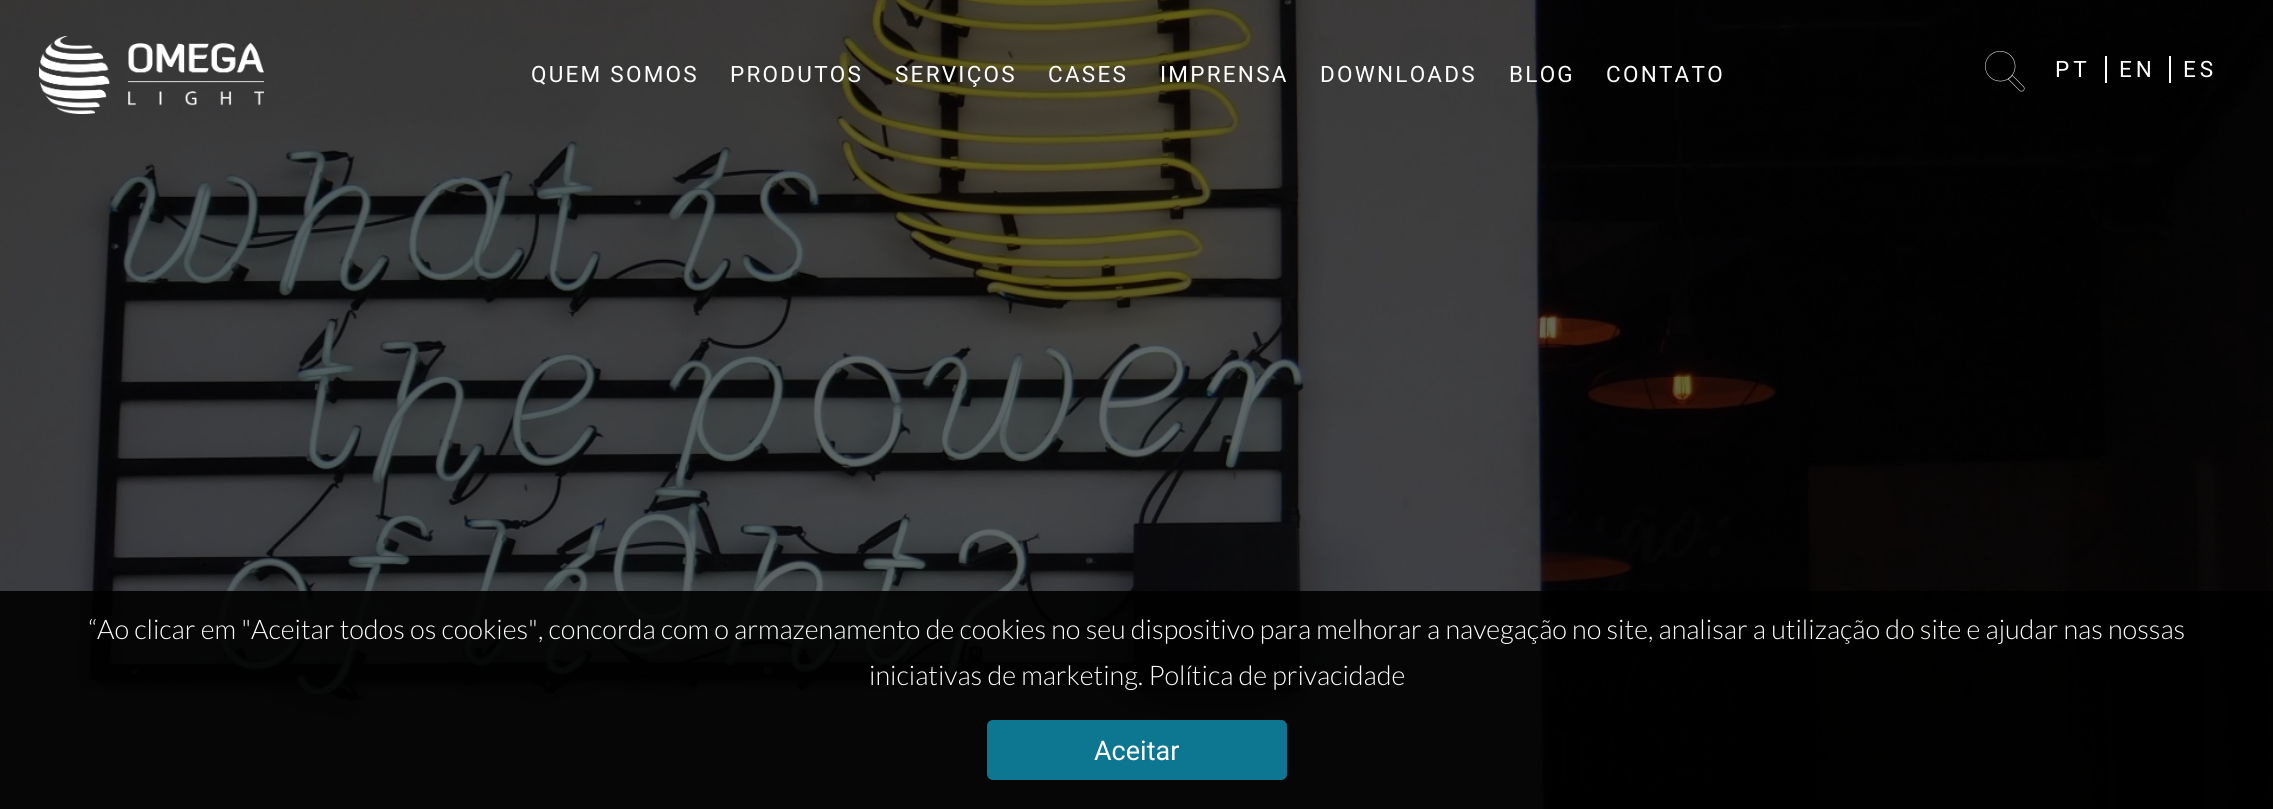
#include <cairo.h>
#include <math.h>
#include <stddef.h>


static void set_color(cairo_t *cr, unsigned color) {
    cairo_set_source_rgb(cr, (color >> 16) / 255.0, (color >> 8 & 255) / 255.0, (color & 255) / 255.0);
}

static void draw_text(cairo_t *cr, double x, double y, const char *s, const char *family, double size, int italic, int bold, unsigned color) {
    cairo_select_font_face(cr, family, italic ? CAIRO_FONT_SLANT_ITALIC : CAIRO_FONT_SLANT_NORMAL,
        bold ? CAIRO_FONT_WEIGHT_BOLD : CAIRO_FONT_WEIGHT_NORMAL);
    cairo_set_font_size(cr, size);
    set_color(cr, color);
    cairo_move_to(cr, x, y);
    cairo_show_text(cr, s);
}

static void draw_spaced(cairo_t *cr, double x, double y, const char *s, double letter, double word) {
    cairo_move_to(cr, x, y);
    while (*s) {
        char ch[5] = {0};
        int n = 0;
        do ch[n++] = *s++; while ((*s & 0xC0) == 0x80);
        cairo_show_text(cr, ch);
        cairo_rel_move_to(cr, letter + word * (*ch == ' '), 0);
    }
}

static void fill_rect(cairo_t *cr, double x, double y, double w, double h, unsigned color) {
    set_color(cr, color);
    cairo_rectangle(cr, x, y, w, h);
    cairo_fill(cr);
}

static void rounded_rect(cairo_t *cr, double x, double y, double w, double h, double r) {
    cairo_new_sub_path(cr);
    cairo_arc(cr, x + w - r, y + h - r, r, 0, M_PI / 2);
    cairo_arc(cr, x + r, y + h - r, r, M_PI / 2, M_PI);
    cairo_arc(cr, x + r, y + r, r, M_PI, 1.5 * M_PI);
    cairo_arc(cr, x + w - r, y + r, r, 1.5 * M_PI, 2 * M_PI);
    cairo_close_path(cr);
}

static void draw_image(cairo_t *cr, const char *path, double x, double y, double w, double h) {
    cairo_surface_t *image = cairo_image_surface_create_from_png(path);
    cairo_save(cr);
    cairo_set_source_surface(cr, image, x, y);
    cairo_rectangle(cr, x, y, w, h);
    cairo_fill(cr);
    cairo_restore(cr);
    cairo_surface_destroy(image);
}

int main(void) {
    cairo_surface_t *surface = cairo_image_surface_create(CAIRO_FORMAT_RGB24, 2273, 809);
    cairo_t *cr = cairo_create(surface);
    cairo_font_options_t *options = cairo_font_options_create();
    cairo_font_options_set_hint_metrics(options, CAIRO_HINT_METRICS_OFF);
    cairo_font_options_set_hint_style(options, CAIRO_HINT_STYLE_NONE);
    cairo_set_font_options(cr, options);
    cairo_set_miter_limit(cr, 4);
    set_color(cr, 0xFFFFFF);
    cairo_paint(cr);
    draw_image(cr, "assets/img1.png", 0, 0, 2273, 809);
    draw_image(cr, "assets/img2.png", 39, 36, 225, 78);
    cairo_select_font_face(cr, "Roboto", CAIRO_FONT_SLANT_NORMAL, CAIRO_FONT_WEIGHT_NORMAL);
    cairo_set_font_size(cr, 22.5);
    set_color(cr, 0xFFFFFF);
    draw_spaced(cr, 531, 82, "QUEM SOMOS", 2.25, 0);
    draw_spaced(cr, 730, 82, "PRODUTOS", 2.25, 0);
    draw_spaced(cr, 895, 82, "SERVIÇOS", 2.25, 0);
    draw_spaced(cr, 1048, 82, "CASES", 2.25, 0);
    draw_spaced(cr, 1160, 82, "IMPRENSA", 2.25, 0);
    draw_spaced(cr, 1320, 82, "DOWNLOADS", 2.25, 0);
    draw_spaced(cr, 1509, 82, "BLOG", 2.25, 0);
    draw_spaced(cr, 1606, 82, "CONTATO", 2.25, 0);
    draw_image(cr, "assets/img3.png", 1985, 51, 40, 41);
    draw_spaced(cr, 2055, 77, "PT", 4, 0);
    fill_rect(cr, 2105, 56, 2, 27, 0xFFFFFF);
    draw_spaced(cr, 2119, 77, "EN", 4, 0);
    fill_rect(cr, 2169, 56, 2, 27, 0xFFFFFF);
    draw_spaced(cr, 2183, 77, "ES", 4, 0);
    cairo_set_source_rgba(cr, 0, 0, 0, 0.9);
    cairo_rectangle(cr, 0, 591, 2273, 218);
    cairo_fill(cr);
    draw_text(cr, 88, 639, "“Ao clicar em \"Aceitar todos os cookies\", concorda com o armazenamento de cookies no seu dispositivo para melhorar a navegação no site, analisar a utilização do site e ajudar nas nossas", "Lato Light", 27, 0, 0, 0xFFFFFF);
    draw_text(cr, 869, 685, "iniciativas de marketing. Política de privacidade", "Lato Light", 27, 0, 0, 0xFFFFFF);
    set_color(cr, 0x0D7792);
    rounded_rect(cr, 987, 720, 300, 60, 6);
    cairo_fill(cr);
    draw_text(cr, 1094, 760, "Aceitar", "Roboto", 27, 0, 0, 0xFFFFFF);
    cairo_surface_write_to_png(surface, "output.png");
    cairo_font_options_destroy(options);
    cairo_destroy(cr);
    cairo_surface_destroy(surface);
    return 0;
}
